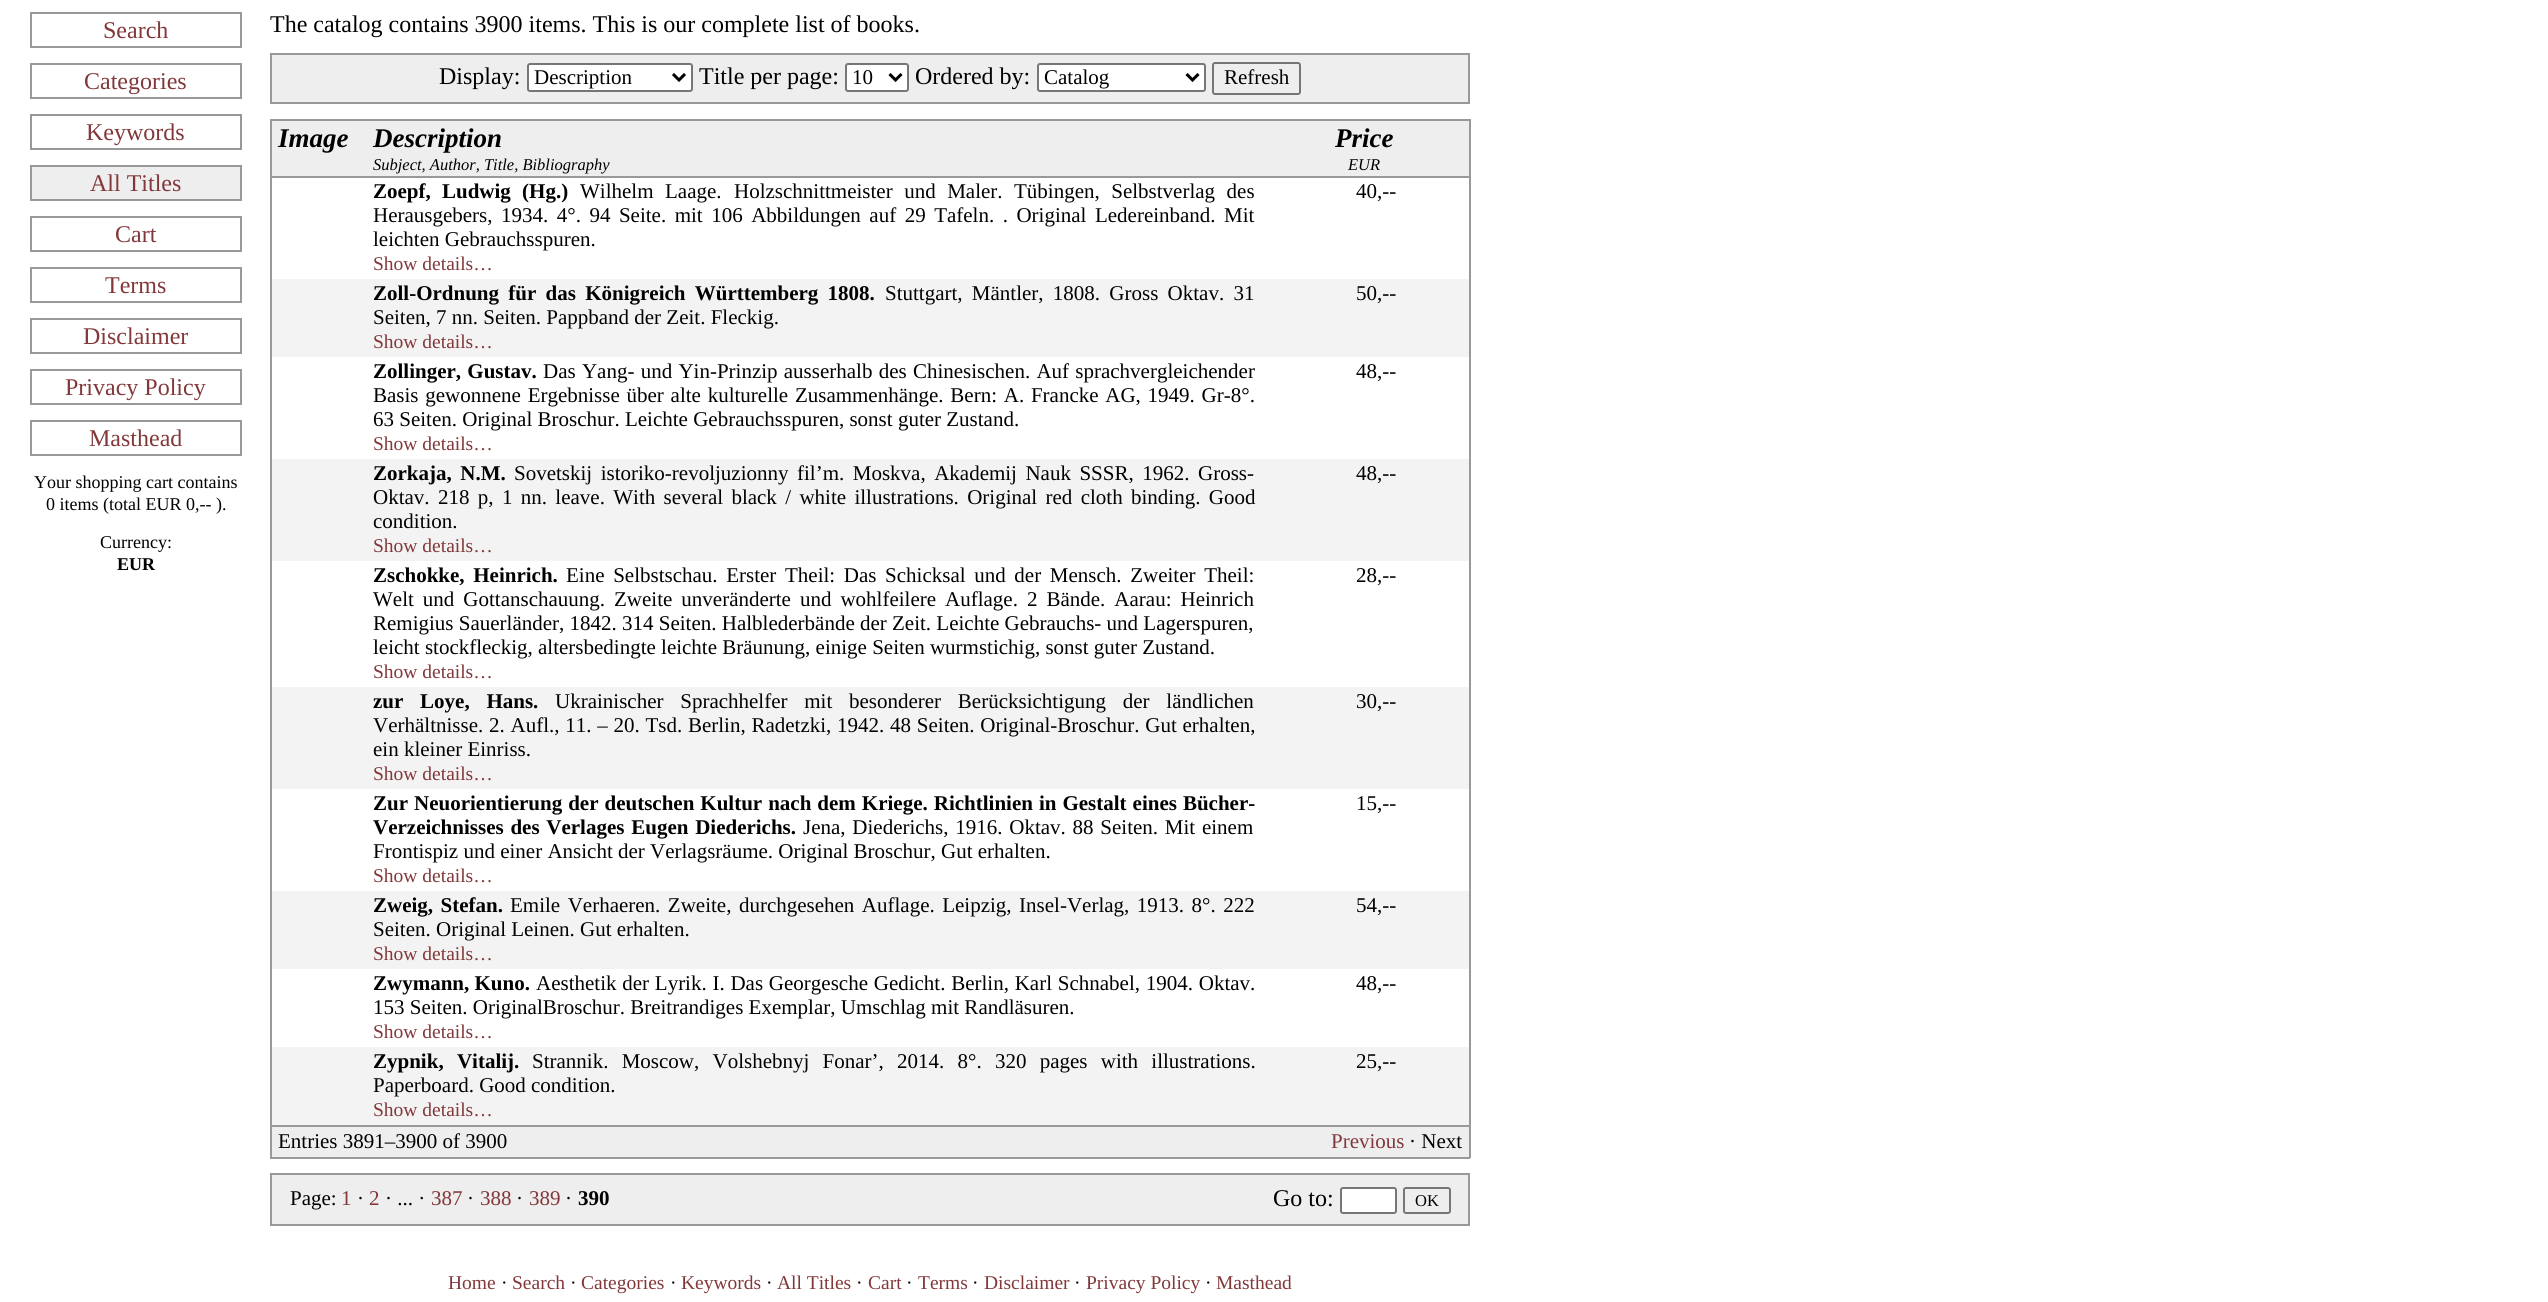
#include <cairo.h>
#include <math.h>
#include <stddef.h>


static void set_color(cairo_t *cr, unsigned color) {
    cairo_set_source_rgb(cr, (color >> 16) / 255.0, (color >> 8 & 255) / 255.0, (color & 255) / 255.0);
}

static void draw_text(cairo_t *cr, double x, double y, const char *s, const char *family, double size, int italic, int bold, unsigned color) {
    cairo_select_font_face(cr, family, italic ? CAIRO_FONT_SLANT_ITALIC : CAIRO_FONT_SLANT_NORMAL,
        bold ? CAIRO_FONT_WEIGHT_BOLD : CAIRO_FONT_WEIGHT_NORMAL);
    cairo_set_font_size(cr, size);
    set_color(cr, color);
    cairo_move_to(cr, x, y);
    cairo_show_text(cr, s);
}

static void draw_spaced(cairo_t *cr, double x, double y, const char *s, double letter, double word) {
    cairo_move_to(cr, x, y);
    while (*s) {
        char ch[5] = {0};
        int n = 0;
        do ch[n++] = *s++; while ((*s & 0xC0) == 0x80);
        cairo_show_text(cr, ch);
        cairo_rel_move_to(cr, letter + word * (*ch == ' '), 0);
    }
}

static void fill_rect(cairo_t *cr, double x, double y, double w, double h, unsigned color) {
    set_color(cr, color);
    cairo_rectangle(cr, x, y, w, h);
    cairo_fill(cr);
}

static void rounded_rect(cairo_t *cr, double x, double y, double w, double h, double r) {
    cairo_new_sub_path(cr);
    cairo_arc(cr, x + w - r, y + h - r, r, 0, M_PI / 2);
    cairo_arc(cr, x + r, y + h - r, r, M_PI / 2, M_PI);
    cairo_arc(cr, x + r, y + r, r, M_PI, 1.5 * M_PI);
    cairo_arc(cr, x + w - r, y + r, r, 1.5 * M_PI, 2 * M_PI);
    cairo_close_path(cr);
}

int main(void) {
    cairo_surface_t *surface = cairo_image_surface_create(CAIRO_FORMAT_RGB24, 2548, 1302);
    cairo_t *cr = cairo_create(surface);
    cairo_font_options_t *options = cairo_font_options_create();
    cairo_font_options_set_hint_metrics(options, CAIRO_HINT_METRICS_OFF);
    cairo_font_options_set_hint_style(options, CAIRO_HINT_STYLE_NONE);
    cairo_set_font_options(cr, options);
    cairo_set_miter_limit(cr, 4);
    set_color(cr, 0xFFFFFF);
    cairo_paint(cr);
    cairo_rectangle(cr, 31, 13, 210, 34);
    set_color(cr, 0x999999);
    cairo_stroke(cr);
    draw_text(cr, 103, 38, "Search", "Liberation Serif", 24, 0, 0, 0x82383A);
    cairo_rectangle(cr, 31, 64, 210, 34);
    set_color(cr, 0x999999);
    cairo_stroke(cr);
    draw_text(cr, 84, 89, "Categories", "Liberation Serif", 24, 0, 0, 0x82383A);
    cairo_rectangle(cr, 31, 115, 210, 34);
    set_color(cr, 0x999999);
    cairo_stroke(cr);
    draw_text(cr, 86, 140, "Keywords", "Liberation Serif", 24, 0, 0, 0x82383A);
    set_color(cr, 0xEEEEEE);
    cairo_rectangle(cr, 31, 166, 210, 34);
    cairo_fill_preserve(cr);
    set_color(cr, 0x999999);
    cairo_stroke(cr);
    draw_text(cr, 90, 191, "All Titles", "Liberation Serif", 24, 0, 0, 0x82383A);
    cairo_rectangle(cr, 31, 217, 210, 34);
    set_color(cr, 0x999999);
    cairo_stroke(cr);
    draw_text(cr, 115, 242, "Cart", "Liberation Serif", 24, 0, 0, 0x82383A);
    cairo_rectangle(cr, 31, 268, 210, 34);
    set_color(cr, 0x999999);
    cairo_stroke(cr);
    draw_text(cr, 105, 293, "Terms", "Liberation Serif", 24, 0, 0, 0x82383A);
    cairo_rectangle(cr, 31, 319, 210, 34);
    set_color(cr, 0x999999);
    cairo_stroke(cr);
    draw_text(cr, 83, 344, "Disclaimer", "Liberation Serif", 24, 0, 0, 0x82383A);
    cairo_rectangle(cr, 31, 370, 210, 34);
    set_color(cr, 0x999999);
    cairo_stroke(cr);
    draw_text(cr, 65, 395, "Privacy Policy", "Liberation Serif", 24, 0, 0, 0x82383A);
    cairo_rectangle(cr, 31, 421, 210, 34);
    set_color(cr, 0x999999);
    cairo_stroke(cr);
    draw_text(cr, 89, 446, "Masthead", "Liberation Serif", 24, 0, 0, 0x82383A);
    draw_text(cr, 34, 488, "Your shopping cart contains", "Liberation Serif", 18, 0, 0, 0x000000);
    draw_text(cr, 46, 510, "0 items (total EUR 0,-- ).", "Liberation Serif", 18, 0, 0, 0x000000);
    draw_text(cr, 100, 548, "Currency:", "Liberation Serif", 18, 0, 0, 0x000000);
    draw_text(cr, 117, 570, "EUR", "Liberation Serif", 18, 0, 1, 0x000000);
    draw_text(cr, 270, 32, "The catalog contains 3900 items. This is our complete list of books.", "Liberation Serif", 24, 0, 0, 0x000000);
    set_color(cr, 0xEEEEEE);
    cairo_rectangle(cr, 271, 54, 1198, 49);
    cairo_fill_preserve(cr);
    set_color(cr, 0x999999);
    cairo_stroke(cr);
    draw_text(cr, 439, 84, "Display:", "Liberation Serif", 24, 0, 0, 0x000000);
    set_color(cr, 0xFFFFFF);
    rounded_rect(cr, 528, 64, 164, 27, 2);
    cairo_fill_preserve(cr);
    set_color(cr, 0x767676);
    cairo_stroke(cr);
    cairo_new_path(cr);
    cairo_move_to(cr, 673, 74);
    cairo_line_to(cr, 679, 80);
    cairo_line_to(cr, 685, 74);
    set_color(cr, 0x000000);
    cairo_set_line_width(cr, 3);
    cairo_stroke(cr);
    draw_text(cr, 534, 84, "Description", "Liberation Serif", 21, 0, 0, 0x000000);
    draw_text(cr, 699, 84, "Title per page:", "Liberation Serif", 24, 0, 0, 0x000000);
    set_color(cr, 0xFFFFFF);
    rounded_rect(cr, 846, 64, 62, 27, 2);
    cairo_fill_preserve(cr);
    set_color(cr, 0x767676);
    cairo_set_line_width(cr, 2);
    cairo_stroke(cr);
    cairo_new_path(cr);
    cairo_move_to(cr, 889.5, 74);
    cairo_line_to(cr, 895.5, 80);
    cairo_line_to(cr, 901.5, 74);
    set_color(cr, 0x000000);
    cairo_set_line_width(cr, 3);
    cairo_stroke(cr);
    draw_text(cr, 852, 84, "10", "Liberation Serif", 21, 0, 0, 0x000000);
    draw_text(cr, 915, 84, "Ordered by:", "Liberation Serif", 24, 0, 0, 0x000000);
    set_color(cr, 0xFFFFFF);
    rounded_rect(cr, 1038, 64, 167, 27, 2);
    cairo_fill_preserve(cr);
    set_color(cr, 0x767676);
    cairo_set_line_width(cr, 2);
    cairo_stroke(cr);
    cairo_new_path(cr);
    cairo_move_to(cr, 1186.5, 74);
    cairo_line_to(cr, 1192.5, 80);
    cairo_line_to(cr, 1198.5, 74);
    set_color(cr, 0x000000);
    cairo_set_line_width(cr, 3);
    cairo_stroke(cr);
    draw_text(cr, 1044, 84, "Catalog", "Liberation Serif", 21, 0, 0, 0x000000);
    rounded_rect(cr, 1213, 63, 87, 31, 2);
    set_color(cr, 0x767676);
    cairo_set_line_width(cr, 2);
    cairo_stroke(cr);
    draw_text(cr, 1224, 84, "Refresh", "Liberation Serif", 21, 0, 0, 0x000000);
    fill_rect(cr, 272, 121, 1197, 1036, 0xEEEEEE);
    fill_rect(cr, 270, 119, 1200, 2, 0x999999);
    fill_rect(cr, 1469, 119, 2, 1039, 0x999999);
    fill_rect(cr, 270, 1157, 1200, 2, 0x999999);
    fill_rect(cr, 270, 119, 2, 1039, 0x999999);
    draw_text(cr, 278, 147, "Image", "Liberation Serif", 27, 1, 1, 0x000000);
    draw_text(cr, 373, 147, "Description", "Liberation Serif", 27, 1, 1, 0x000000);
    draw_text(cr, 373, 170, "Subject, Author, Title, Bibliography", "Liberation Serif", 16.5, 1, 0, 0x000000);
    fill_rect(cr, 270, 176, 1200, 2, 0x999999);
    draw_text(cr, 1335, 147, "Price", "Liberation Serif", 27, 1, 1, 0x000000);
    draw_text(cr, 1348, 170, "EUR", "Liberation Serif", 16.5, 1, 0, 0x000000);
    fill_rect(cr, 272, 178, 1197, 101, 0xFFFFFF);
    cairo_select_font_face(cr, "Liberation Serif", CAIRO_FONT_SLANT_NORMAL, CAIRO_FONT_WEIGHT_BOLD);
    cairo_set_font_size(cr, 21);
    set_color(cr, 0x000000);
    draw_spaced(cr, 373, 198, "Zoepf, Ludwig (Hg.)", 0, 6);
    cairo_select_font_face(cr, "Liberation Serif", CAIRO_FONT_SLANT_NORMAL, CAIRO_FONT_WEIGHT_NORMAL);
    draw_spaced(cr, 580, 198, "Wilhelm Laage.", 0, 6.25);
    draw_spaced(cr, 734, 198, "Holzschnittmeister und Maler. Tübingen, Selbstverlag des", 0, 6.25);
    draw_spaced(cr, 373, 222, "Herausgebers, 1934. 4°. 94 Seite. mit 106 Abbildungen auf 29 Tafeln. . Original Ledereinband. Mit", 0, 3.25);
    draw_text(cr, 373, 246, "leichten Gebrauchsspuren.", "Liberation Serif", 21, 0, 0, 0x000000);
    draw_text(cr, 373, 270, "Show details…", "Liberation Serif", 19.5, 0, 0, 0x82383A);
    draw_text(cr, 1356, 198, "40,--", "Liberation Serif", 21, 0, 0, 0x000000);
    fill_rect(cr, 272, 279, 1197, 78, 0xF3F3F3);
    cairo_select_font_face(cr, "Liberation Serif", CAIRO_FONT_SLANT_NORMAL, CAIRO_FONT_WEIGHT_BOLD);
    set_color(cr, 0x000000);
    draw_spaced(cr, 373, 300, "Zoll-Ordnung für das Königreich Württemberg 1808.", 0, 4);
    cairo_select_font_face(cr, "Liberation Serif", CAIRO_FONT_SLANT_NORMAL, CAIRO_FONT_WEIGHT_NORMAL);
    draw_spaced(cr, 885, 300, "Stuttgart, Mäntler, 1808. Gross Oktav. 31", 0, 4);
    draw_text(cr, 373, 324, "Seiten, 7 nn. Seiten. Pappband der Zeit. Fleckig.", "Liberation Serif", 21, 0, 0, 0x000000);
    draw_text(cr, 373, 348, "Show details…", "Liberation Serif", 19.5, 0, 0, 0x82383A);
    draw_text(cr, 1356, 300, "50,--", "Liberation Serif", 21, 0, 0, 0x000000);
    fill_rect(cr, 272, 357, 1197, 102, 0xFFFFFF);
    cairo_select_font_face(cr, "Liberation Serif", CAIRO_FONT_SLANT_NORMAL, CAIRO_FONT_WEIGHT_BOLD);
    set_color(cr, 0x000000);
    draw_spaced(cr, 373, 378, "Zollinger, Gustav.", 0, 1);
    cairo_select_font_face(cr, "Liberation Serif", CAIRO_FONT_SLANT_NORMAL, CAIRO_FONT_WEIGHT_NORMAL);
    draw_spaced(cr, 543, 378, "Das Yang- und Yin-Prinzip ausserhalb des Chinesischen. Auf sprachvergleichender", 0, 1);
    draw_spaced(cr, 373, 402, "Basis gewonnene Ergebnisse über alte kulturelle Zusammenhänge. Bern: A. Francke AG, 1949. Gr-8°.", 0, 1.5);
    draw_text(cr, 373, 426, "63 Seiten. Original Broschur. Leichte Gebrauchsspuren, sonst guter Zustand.", "Liberation Serif", 21, 0, 0, 0x000000);
    draw_text(cr, 373, 450, "Show details…", "Liberation Serif", 19.5, 0, 0, 0x82383A);
    draw_text(cr, 1356, 378, "48,--", "Liberation Serif", 21, 0, 0, 0x000000);
    fill_rect(cr, 272, 459, 1197, 102, 0xF3F3F3);
    cairo_select_font_face(cr, "Liberation Serif", CAIRO_FONT_SLANT_NORMAL, CAIRO_FONT_WEIGHT_BOLD);
    set_color(cr, 0x000000);
    draw_spaced(cr, 373, 480, "Zorkaja, N.M.", 0, 3.25);
    cairo_select_font_face(cr, "Liberation Serif", CAIRO_FONT_SLANT_NORMAL, CAIRO_FONT_WEIGHT_NORMAL);
    draw_spaced(cr, 514, 480, "Sovetskij istoriko-revoljuzionny fil’m. Moskva, Akademij Nauk SSSR, 1962. Gross-", 0, 3.25);
    draw_spaced(cr, 373, 504, "Oktav. 218 p, 1 nn. leave. With several black / white illustrations. Original red cloth binding. Good", 0, 3.1);
    draw_text(cr, 373, 528, "condition.", "Liberation Serif", 21, 0, 0, 0x000000);
    draw_text(cr, 373, 552, "Show details…", "Liberation Serif", 19.5, 0, 0, 0x82383A);
    draw_text(cr, 1356, 480, "48,--", "Liberation Serif", 21, 0, 0, 0x000000);
    fill_rect(cr, 272, 561, 1197, 126, 0xFFFFFF);
    cairo_select_font_face(cr, "Liberation Serif", CAIRO_FONT_SLANT_NORMAL, CAIRO_FONT_WEIGHT_BOLD);
    set_color(cr, 0x000000);
    draw_spaced(cr, 373, 582, "Zschokke, Heinrich.", 0, 3.4);
    cairo_select_font_face(cr, "Liberation Serif", CAIRO_FONT_SLANT_NORMAL, CAIRO_FONT_WEIGHT_NORMAL);
    draw_spaced(cr, 566, 582, "Eine Selbstschau. Erster Theil: Das Schicksal und der Mensch. Zweiter Theil:", 0, 3.4);
    draw_spaced(cr, 373, 606, "Welt und Gottanschauung. Zweite unveränderte und wohlfeilere Auflage. 2 Bände. Aarau: Heinrich", 0, 3.75);
    draw_text(cr, 373, 630, "Remigius Sauerländer, 1842. 314 Seiten. Halblederbände der Zeit. Leichte Gebrauchs- und Lagerspuren,", "Liberation Serif", 21, 0, 0, 0x000000);
    draw_text(cr, 373, 654, "leicht stockfleckig, altersbedingte leichte Bräunung, einige Seiten wurmstichig, sonst guter Zustand.", "Liberation Serif", 21, 0, 0, 0x000000);
    draw_text(cr, 373, 678, "Show details…", "Liberation Serif", 19.5, 0, 0, 0x82383A);
    draw_text(cr, 1356, 582, "28,--", "Liberation Serif", 21, 0, 0, 0x000000);
    fill_rect(cr, 272, 687, 1197, 102, 0xF3F3F3);
    cairo_select_font_face(cr, "Liberation Serif", CAIRO_FONT_SLANT_NORMAL, CAIRO_FONT_WEIGHT_BOLD);
    set_color(cr, 0x000000);
    draw_spaced(cr, 373, 708, "zur Loye, Hans.", 0, 11.5);
    cairo_select_font_face(cr, "Liberation Serif", CAIRO_FONT_SLANT_NORMAL, CAIRO_FONT_WEIGHT_NORMAL);
    draw_spaced(cr, 555, 708, "Ukrainischer Sprachhelfer mit besonderer Berücksichtigung der ländlichen", 0, 11.5);
    draw_spaced(cr, 373, 732, "Verhältnisse. 2. Aufl., 11. – 20. Tsd. Berlin, Radetzki, 1942. 48 Seiten. Original-Broschur. Gut erhalten,", 0, 0.5);
    draw_text(cr, 373, 756, "ein kleiner Einriss.", "Liberation Serif", 21, 0, 0, 0x000000);
    draw_text(cr, 373, 780, "Show details…", "Liberation Serif", 19.5, 0, 0, 0x82383A);
    draw_text(cr, 1356, 708, "30,--", "Liberation Serif", 21, 0, 0, 0x000000);
    fill_rect(cr, 272, 789, 1197, 102, 0xFFFFFF);
    cairo_select_font_face(cr, "Liberation Serif", CAIRO_FONT_SLANT_NORMAL, CAIRO_FONT_WEIGHT_BOLD);
    set_color(cr, 0x000000);
    draw_spaced(cr, 373, 810, "Zur Neuorientierung der deutschen Kultur nach dem Kriege. Richtlinien in Gestalt eines Bücher-", 0, 0.75);
    draw_spaced(cr, 373, 834, "Verzeichnisses des Verlages Eugen Diederichs.", 0, 1.5);
    cairo_select_font_face(cr, "Liberation Serif", CAIRO_FONT_SLANT_NORMAL, CAIRO_FONT_WEIGHT_NORMAL);
    draw_spaced(cr, 803, 834, "Jena, Diederichs, 1916. Oktav. 88 Seiten. Mit einem", 0, 1.5);
    draw_text(cr, 373, 858, "Frontispiz und einer Ansicht der Verlagsräume. Original Broschur, Gut erhalten.", "Liberation Serif", 21, 0, 0, 0x000000);
    draw_text(cr, 373, 882, "Show details…", "Liberation Serif", 19.5, 0, 0, 0x82383A);
    draw_text(cr, 1356, 810, "15,--", "Liberation Serif", 21, 0, 0, 0x000000);
    fill_rect(cr, 272, 891, 1197, 78, 0xF3F3F3);
    cairo_select_font_face(cr, "Liberation Serif", CAIRO_FONT_SLANT_NORMAL, CAIRO_FONT_WEIGHT_BOLD);
    set_color(cr, 0x000000);
    draw_spaced(cr, 373, 912, "Zweig, Stefan.", 0, 2.25);
    cairo_select_font_face(cr, "Liberation Serif", CAIRO_FONT_SLANT_NORMAL, CAIRO_FONT_WEIGHT_NORMAL);
    draw_spaced(cr, 510, 912, "Emile Verhaeren. Zweite, durchgesehen Auflage. Leipzig, Insel-Verlag, 1913. 8°. 222", 0, 2.25);
    draw_text(cr, 373, 936, "Seiten. Original Leinen. Gut erhalten.", "Liberation Serif", 21, 0, 0, 0x000000);
    draw_text(cr, 373, 960, "Show details…", "Liberation Serif", 19.5, 0, 0, 0x82383A);
    draw_text(cr, 1356, 912, "54,--", "Liberation Serif", 21, 0, 0, 0x000000);
    fill_rect(cr, 272, 969, 1197, 78, 0xFFFFFF);
    draw_text(cr, 373, 990, "Zwymann, Kuno.", "Liberation Serif", 21, 0, 1, 0x000000);
    cairo_select_font_face(cr, "Liberation Serif", CAIRO_FONT_SLANT_NORMAL, CAIRO_FONT_WEIGHT_NORMAL);
    draw_spaced(cr, 536, 990, "Aesthetik der Lyrik. I. Das Georgesche Gedicht. Berlin, Karl Schnabel, 1904. Oktav.", 0, 0.5);
    draw_text(cr, 373, 1014, "153 Seiten. OriginalBroschur. Breitrandiges Exemplar, Umschlag mit Randläsuren.", "Liberation Serif", 21, 0, 0, 0x000000);
    draw_text(cr, 373, 1038, "Show details…", "Liberation Serif", 19.5, 0, 0, 0x82383A);
    draw_text(cr, 1356, 990, "48,--", "Liberation Serif", 21, 0, 0, 0x000000);
    fill_rect(cr, 272, 1047, 1197, 78, 0xF3F3F3);
    cairo_select_font_face(cr, "Liberation Serif", CAIRO_FONT_SLANT_NORMAL, CAIRO_FONT_WEIGHT_BOLD);
    set_color(cr, 0x000000);
    draw_spaced(cr, 373, 1068, "Zypnik, Vitalij.", 0, 8);
    cairo_select_font_face(cr, "Liberation Serif", CAIRO_FONT_SLANT_NORMAL, CAIRO_FONT_WEIGHT_NORMAL);
    draw_spaced(cr, 532, 1068, "Strannik. Moscow, Volshebnyj Fonar’, 2014. 8°. 320 pages with illustrations.", 0, 8);
    draw_text(cr, 373, 1092, "Paperboard. Good condition.", "Liberation Serif", 21, 0, 0, 0x000000);
    draw_text(cr, 373, 1116, "Show details…", "Liberation Serif", 19.5, 0, 0, 0x82383A);
    draw_text(cr, 1356, 1068, "25,--", "Liberation Serif", 21, 0, 0, 0x000000);
    fill_rect(cr, 270, 1125, 1200, 2, 0x999999);
    draw_text(cr, 278, 1148, "Entries 3891–3900 of 3900", "Liberation Serif", 21, 0, 0, 0x000000);
    draw_text(cr, 1331, 1148, "Previous", "Liberation Serif", 21, 0, 0, 0x82383A);
    draw_text(cr, 1409, 1148, "· Next", "Liberation Serif", 21, 0, 0, 0x000000);
    set_color(cr, 0xEEEEEE);
    cairo_rectangle(cr, 271, 1174, 1198, 51);
    cairo_fill_preserve(cr);
    set_color(cr, 0x999999);
    cairo_stroke(cr);
    draw_text(cr, 290, 1205, "Page:", "Liberation Serif", 21, 0, 0, 0x000000);
    draw_text(cr, 341, 1205, "1", "Liberation Serif", 21, 0, 0, 0x82383A);
    draw_text(cr, 357, 1205, "·", "Liberation Serif", 21, 0, 0, 0x000000);
    draw_text(cr, 369, 1205, "2", "Liberation Serif", 21, 0, 0, 0x82383A);
    draw_text(cr, 385, 1205, "· ... ·", "Liberation Serif", 21, 0, 0, 0x000000);
    draw_text(cr, 431, 1205, "387", "Liberation Serif", 21, 0, 0, 0x82383A);
    draw_text(cr, 467, 1205, "·", "Liberation Serif", 21, 0, 0, 0x000000);
    draw_text(cr, 480, 1205, "388", "Liberation Serif", 21, 0, 0, 0x82383A);
    draw_text(cr, 516, 1205, "·", "Liberation Serif", 21, 0, 0, 0x000000);
    draw_text(cr, 529, 1205, "389", "Liberation Serif", 21, 0, 0, 0x82383A);
    draw_text(cr, 565, 1205, "·", "Liberation Serif", 21, 0, 0, 0x000000);
    draw_text(cr, 578, 1205, "390", "Liberation Serif", 21, 0, 1, 0x000000);
    draw_text(cr, 1273, 1206, "Go to:", "Liberation Serif", 24, 0, 0, 0x000000);
    set_color(cr, 0xFFFFFF);
    rounded_rect(cr, 1341, 1188, 55, 25, 2);
    cairo_fill_preserve(cr);
    set_color(cr, 0x767676);
    cairo_stroke(cr);
    rounded_rect(cr, 1404, 1188, 46, 25, 2);
    cairo_stroke(cr);
    draw_text(cr, 1415, 1206, "OK", "Liberation Serif", 16.5, 0, 0, 0x000000);
    draw_text(cr, 448, 1289, "Home", "Liberation Serif", 19.5, 0, 0, 0x82383A);
    draw_text(cr, 501, 1289, "·", "Liberation Serif", 19.5, 0, 0, 0x000000);
    draw_text(cr, 512, 1289, "Search", "Liberation Serif", 19.5, 0, 0, 0x82383A);
    draw_text(cr, 570, 1289, "·", "Liberation Serif", 19.5, 0, 0, 0x000000);
    draw_text(cr, 581, 1289, "Categories", "Liberation Serif", 19.5, 0, 0, 0x82383A);
    draw_text(cr, 670, 1289, "·", "Liberation Serif", 19.5, 0, 0, 0x000000);
    draw_text(cr, 681, 1289, "Keywords", "Liberation Serif", 19.5, 0, 0, 0x82383A);
    draw_text(cr, 766, 1289, "·", "Liberation Serif", 19.5, 0, 0, 0x000000);
    draw_text(cr, 777, 1289, "All Titles", "Liberation Serif", 19.5, 0, 0, 0x82383A);
    draw_text(cr, 856, 1289, "·", "Liberation Serif", 19.5, 0, 0, 0x000000);
    draw_text(cr, 868, 1289, "Cart", "Liberation Serif", 19.5, 0, 0, 0x82383A);
    draw_text(cr, 906, 1289, "·", "Liberation Serif", 19.5, 0, 0, 0x000000);
    draw_text(cr, 918, 1289, "Terms", "Liberation Serif", 19.5, 0, 0, 0x82383A);
    draw_text(cr, 972, 1289, "·", "Liberation Serif", 19.5, 0, 0, 0x000000);
    draw_text(cr, 984, 1289, "Disclaimer", "Liberation Serif", 19.5, 0, 0, 0x82383A);
    draw_text(cr, 1074, 1289, "·", "Liberation Serif", 19.5, 0, 0, 0x000000);
    draw_text(cr, 1086, 1289, "Privacy Policy", "Liberation Serif", 19.5, 0, 0, 0x82383A);
    draw_text(cr, 1205, 1289, "·", "Liberation Serif", 19.5, 0, 0, 0x000000);
    draw_text(cr, 1216, 1289, "Masthead", "Liberation Serif", 19.5, 0, 0, 0x82383A);
    cairo_surface_write_to_png(surface, "output.png");
    cairo_font_options_destroy(options);
    cairo_destroy(cr);
    cairo_surface_destroy(surface);
    return 0;
}
